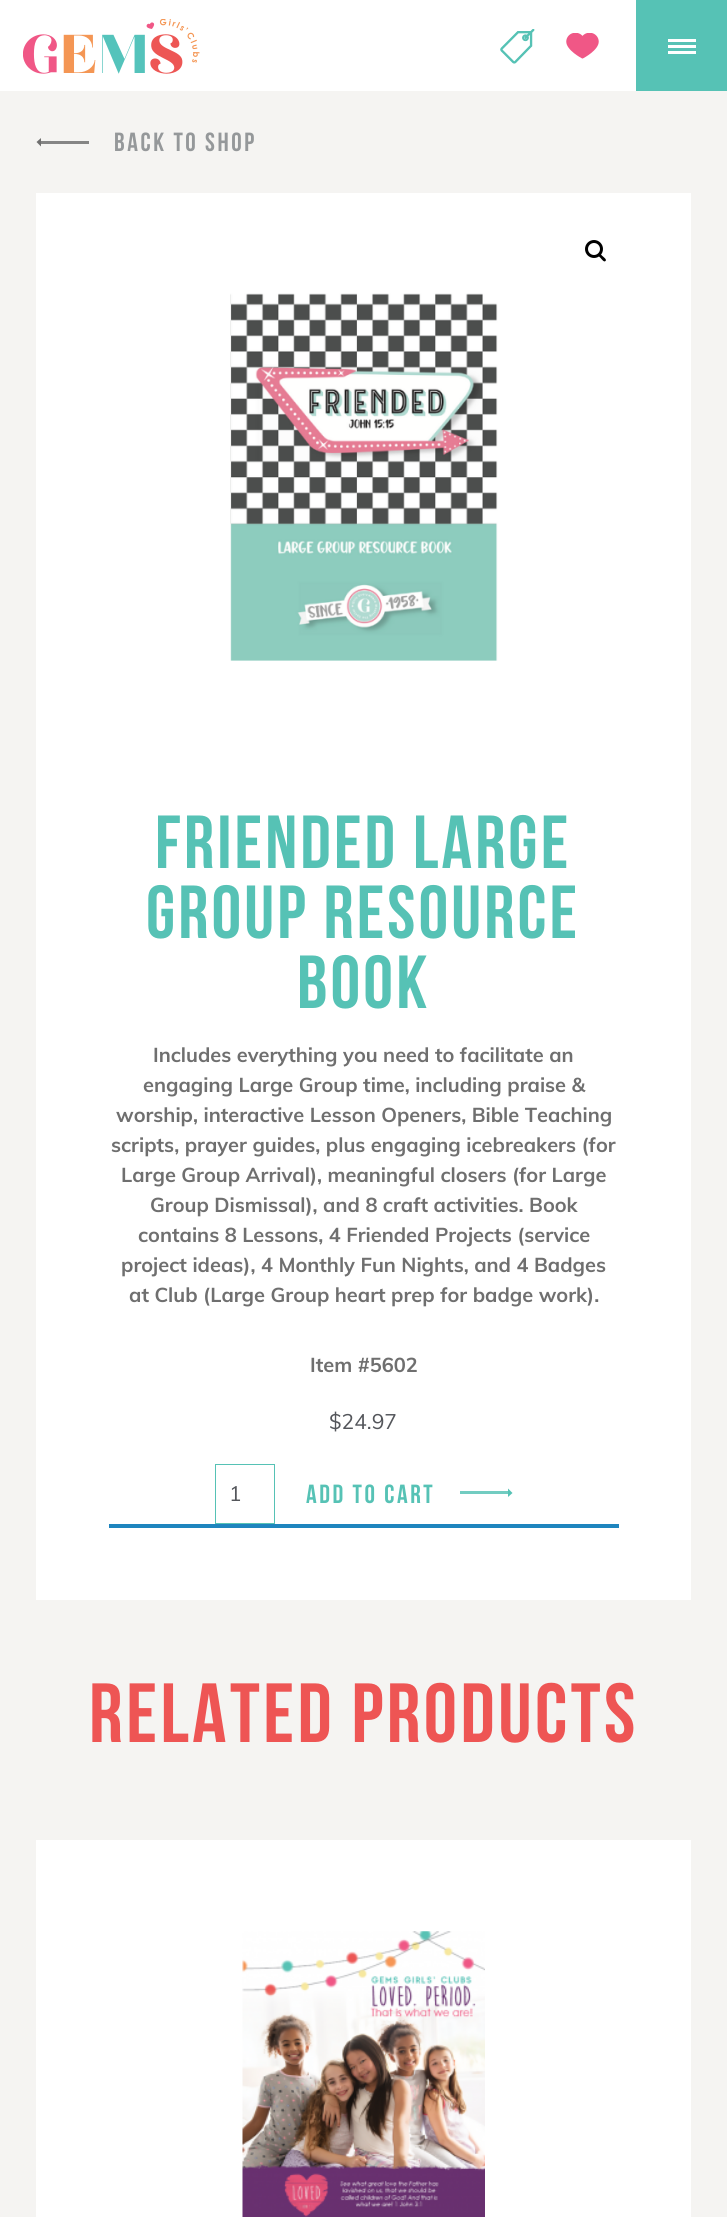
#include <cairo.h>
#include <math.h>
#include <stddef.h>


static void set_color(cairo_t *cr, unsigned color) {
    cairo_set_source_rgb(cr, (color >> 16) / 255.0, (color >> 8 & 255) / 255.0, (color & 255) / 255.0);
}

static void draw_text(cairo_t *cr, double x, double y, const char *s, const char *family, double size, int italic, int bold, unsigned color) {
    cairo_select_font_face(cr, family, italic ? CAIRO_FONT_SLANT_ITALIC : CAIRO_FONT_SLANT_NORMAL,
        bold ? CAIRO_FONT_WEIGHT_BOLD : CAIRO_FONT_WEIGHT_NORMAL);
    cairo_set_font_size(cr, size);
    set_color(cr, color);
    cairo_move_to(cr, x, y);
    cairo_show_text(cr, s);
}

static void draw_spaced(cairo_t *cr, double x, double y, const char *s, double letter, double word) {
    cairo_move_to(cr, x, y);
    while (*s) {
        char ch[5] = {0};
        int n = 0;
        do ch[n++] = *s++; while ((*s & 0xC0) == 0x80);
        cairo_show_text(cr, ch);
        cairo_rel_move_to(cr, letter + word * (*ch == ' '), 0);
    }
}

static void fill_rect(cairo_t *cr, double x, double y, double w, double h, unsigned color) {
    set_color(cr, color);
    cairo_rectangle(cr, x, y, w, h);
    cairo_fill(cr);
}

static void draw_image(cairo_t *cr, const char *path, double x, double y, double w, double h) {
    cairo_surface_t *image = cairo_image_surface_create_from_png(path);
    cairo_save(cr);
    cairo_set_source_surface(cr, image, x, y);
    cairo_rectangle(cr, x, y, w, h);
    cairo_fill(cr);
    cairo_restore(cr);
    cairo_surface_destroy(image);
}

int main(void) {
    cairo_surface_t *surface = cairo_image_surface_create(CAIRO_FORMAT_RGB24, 727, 2217);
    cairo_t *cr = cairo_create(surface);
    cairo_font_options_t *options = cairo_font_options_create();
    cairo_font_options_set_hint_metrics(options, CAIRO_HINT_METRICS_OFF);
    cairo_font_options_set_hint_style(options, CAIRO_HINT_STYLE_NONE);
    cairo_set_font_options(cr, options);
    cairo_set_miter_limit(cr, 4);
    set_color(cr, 0xFFFFFF);
    cairo_paint(cr);
    draw_image(cr, "assets/img1.png", 23, 19, 177, 55);
    draw_image(cr, "assets/img2.png", 500, 29, 35, 35);
    draw_image(cr, "assets/img3.png", 566, 33, 33, 26);
    fill_rect(cr, 636, 0, 91, 91, 0x56C2B5);
    fill_rect(cr, 668, 39, 28, 3, 0xFFFFFF);
    fill_rect(cr, 668, 45, 28, 3, 0xFFFFFF);
    fill_rect(cr, 668, 51, 28, 3, 0xFFFFFF);
    fill_rect(cr, 0, 91, 727, 2126, 0xF5F4F2);
    fill_rect(cr, 41, 141, 48, 3, 0x858585);
    set_color(cr, 0x6F6F6F);
    cairo_new_path(cr);
    cairo_move_to(cr, 41, 146.5);
    cairo_line_to(cr, 41, 138);
    cairo_line_to(cr, 36.5, 142);
    cairo_close_path(cr);
    cairo_fill(cr);
    cairo_select_font_face(cr, "Bebas Neue", CAIRO_FONT_SLANT_NORMAL, CAIRO_FONT_WEIGHT_NORMAL);
    cairo_set_font_size(cr, 26.25);
    set_color(cr, 0x95989A);
    draw_spaced(cr, 114, 151, "BACK TO SHOP", 2.6, 0);
    fill_rect(cr, 36, 193, 655, 1407, 0xFFFFFF);
    cairo_new_path(cr);
    cairo_arc(cr, 594, 249, 7.5, 0, 2 * M_PI);
    set_color(cr, 0x000000);
    cairo_set_line_width(cr, 3);
    cairo_stroke(cr);
    cairo_new_path(cr);
    cairo_move_to(cr, 598.5, 254);
    cairo_curve_to(cr, 600, 252.5, 602, 256, 603, 256.5);
    cairo_curve_to(cr, 604, 257.5, 607, 259.5, 605.5, 261);
    cairo_curve_to(cr, 604, 262.5, 602, 259.5, 601, 258.5);
    cairo_curve_to(cr, 600.5, 257.5, 597, 255.5, 598.5, 254);
    cairo_close_path(cr);
    cairo_fill(cr);
    draw_image(cr, "assets/img4.png", 230, 293, 268, 368);
    cairo_set_font_size(cr, 75);
    set_color(cr, 0x56C2B5);
    draw_spaced(cr, 155, 868, "FRIENDED LARGE", 3.1, 0);
    draw_spaced(cr, 146, 938, "GROUP RESOURCE", 3.1, 0);
    draw_spaced(cr, 297, 1008, "BOOK", 3.1, 0);
    draw_text(cr, 153, 1062, "Includes everything you need to facilitate an", "Muli", 20, 0, 1, 0x6F6F6F);
    draw_text(cr, 143, 1092, "engaging Large Group time, including praise &", "Muli", 20, 0, 1, 0x6F6F6F);
    draw_text(cr, 116, 1122, "worship, interactive Lesson Openers, Bible Teaching", "Muli", 20, 0, 1, 0x6F6F6F);
    draw_text(cr, 111, 1152, "scripts, prayer guides, plus engaging icebreakers (for", "Muli", 20, 0, 1, 0x6F6F6F);
    draw_text(cr, 121, 1182, "Large Group Arrival), meaningful closers (for Large", "Muli", 20, 0, 1, 0x6F6F6F);
    draw_text(cr, 150, 1212, "Group Dismissal), and 8 craft activities. Book", "Muli", 20, 0, 1, 0x6F6F6F);
    draw_text(cr, 138, 1242, "contains 8 Lessons, 4 Friended Projects (service", "Muli", 20, 0, 1, 0x6F6F6F);
    draw_text(cr, 121, 1272, "project ideas), 4 Monthly Fun Nights, and 4 Badges", "Muli", 20, 0, 1, 0x6F6F6F);
    draw_text(cr, 129, 1302, "at Club (Large Group heart prep for badge work).", "Muli", 20, 0, 1, 0x6F6F6F);
    draw_text(cr, 310, 1372, "Item #5602", "Muli", 20, 0, 1, 0x6F6F6F);
    draw_text(cr, 329, 1429, "$24.97", "Muli", 21, 0, 0, 0x54565B);
    cairo_rectangle(cr, 215.5, 1464.5, 59, 59);
    set_color(cr, 0x56C2B5);
    cairo_set_line_width(cr, 1);
    cairo_stroke(cr);
    draw_text(cr, 229, 1501, "1", "Muli", 21, 0, 0, 0x54565B);
    cairo_select_font_face(cr, "Bebas Neue", CAIRO_FONT_SLANT_NORMAL, CAIRO_FONT_WEIGHT_NORMAL);
    cairo_set_font_size(cr, 26.25);
    set_color(cr, 0x56C2B5);
    draw_spaced(cr, 306, 1503, "ADD TO CART", 2.6, 0);
    fill_rect(cr, 460, 1491, 48, 3, 0x72CCC1);
    set_color(cr, 0x56C2B5);
    cairo_new_path(cr);
    cairo_move_to(cr, 508, 1488.5);
    cairo_line_to(cr, 508, 1497);
    cairo_line_to(cr, 512.5, 1493);
    cairo_close_path(cr);
    cairo_fill(cr);
    fill_rect(cr, 109, 1524, 510, 4, 0x1E85BE);
    cairo_set_font_size(cr, 83.75);
    set_color(cr, 0xEE5554);
    draw_spaced(cr, 89, 1742, "RELATED PRODUCTS", 3.5, 0);
    fill_rect(cr, 36, 1840, 655, 377, 0xFFFFFF);
    draw_image(cr, "assets/img5.png", 242, 1931, 243, 286);
    cairo_surface_write_to_png(surface, "output.png");
    cairo_font_options_destroy(options);
    cairo_destroy(cr);
    cairo_surface_destroy(surface);
    return 0;
}
